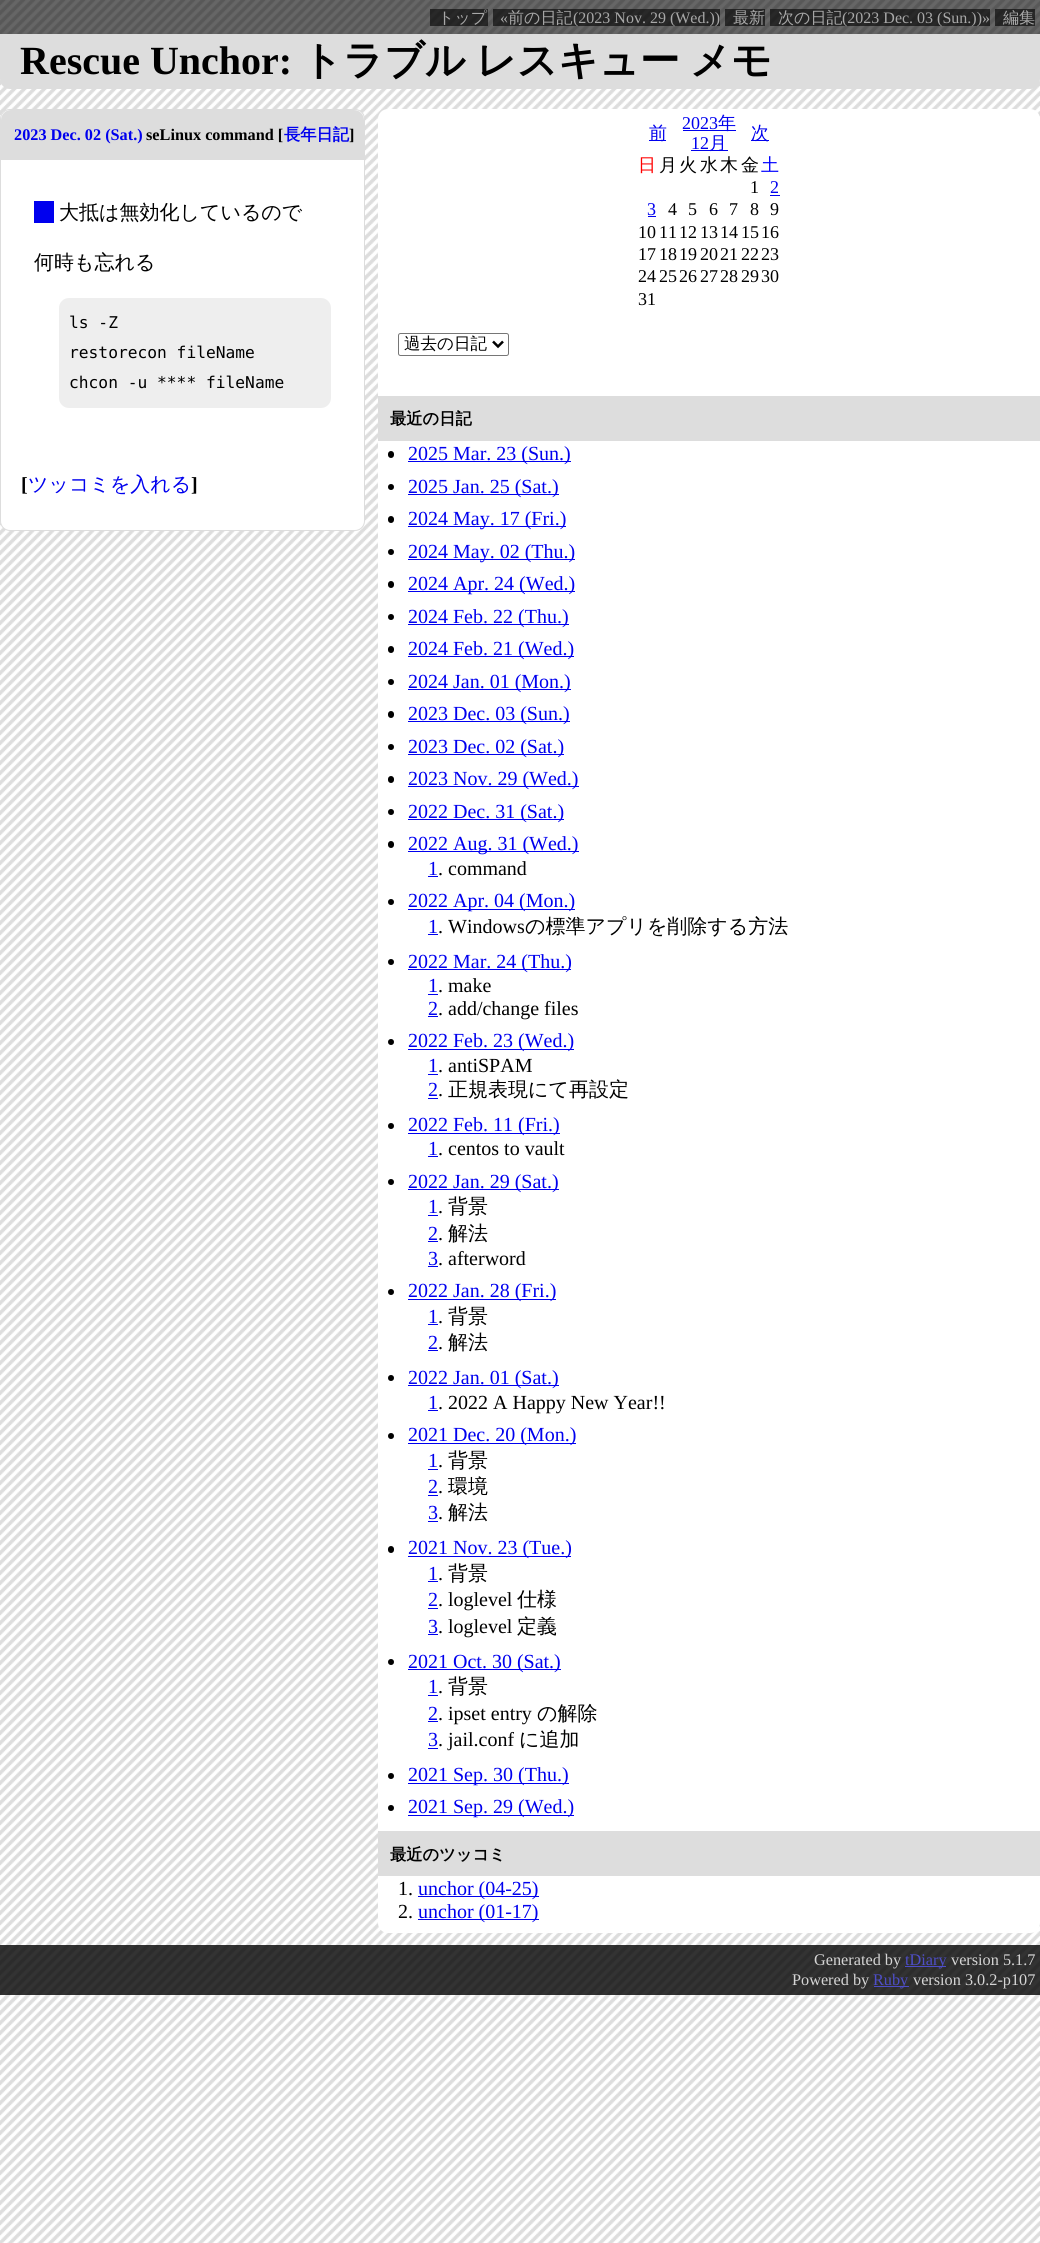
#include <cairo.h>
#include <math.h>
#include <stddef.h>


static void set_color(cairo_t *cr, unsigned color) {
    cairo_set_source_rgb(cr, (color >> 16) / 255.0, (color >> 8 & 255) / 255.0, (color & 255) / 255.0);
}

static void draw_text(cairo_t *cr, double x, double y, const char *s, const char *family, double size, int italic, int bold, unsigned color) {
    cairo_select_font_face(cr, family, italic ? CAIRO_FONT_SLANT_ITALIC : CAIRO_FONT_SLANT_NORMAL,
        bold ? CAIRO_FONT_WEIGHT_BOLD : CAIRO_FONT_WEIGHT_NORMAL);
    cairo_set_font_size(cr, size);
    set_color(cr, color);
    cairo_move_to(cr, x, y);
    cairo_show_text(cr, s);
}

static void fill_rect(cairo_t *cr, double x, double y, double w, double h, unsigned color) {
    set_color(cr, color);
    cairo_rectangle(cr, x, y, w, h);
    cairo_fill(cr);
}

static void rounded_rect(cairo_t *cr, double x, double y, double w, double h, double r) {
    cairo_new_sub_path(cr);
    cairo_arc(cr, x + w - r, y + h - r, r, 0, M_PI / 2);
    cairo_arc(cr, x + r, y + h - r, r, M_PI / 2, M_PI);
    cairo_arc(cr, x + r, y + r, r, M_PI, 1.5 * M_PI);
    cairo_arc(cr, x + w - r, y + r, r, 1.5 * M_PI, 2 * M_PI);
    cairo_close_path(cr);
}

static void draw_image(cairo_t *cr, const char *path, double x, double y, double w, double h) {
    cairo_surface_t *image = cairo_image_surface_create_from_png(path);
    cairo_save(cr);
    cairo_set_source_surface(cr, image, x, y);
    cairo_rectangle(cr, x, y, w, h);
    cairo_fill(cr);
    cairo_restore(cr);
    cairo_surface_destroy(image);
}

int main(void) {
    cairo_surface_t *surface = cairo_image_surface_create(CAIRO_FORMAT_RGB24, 1040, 2243);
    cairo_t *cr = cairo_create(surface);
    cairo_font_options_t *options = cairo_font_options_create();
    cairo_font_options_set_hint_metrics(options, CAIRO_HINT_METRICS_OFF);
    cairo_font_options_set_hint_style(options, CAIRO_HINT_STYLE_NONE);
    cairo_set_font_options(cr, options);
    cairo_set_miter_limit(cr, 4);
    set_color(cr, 0xFFFFFF);
    cairo_paint(cr);
    draw_image(cr, "assets/img1.png", 0, 0, 1040, 2243);
    cairo_set_source_rgba(cr, 0, 0, 0, 0.6);
    cairo_rectangle(cr, 0, 0, 1040, 34);
    cairo_fill(cr);
    cairo_rectangle(cr, 430, 9, 58, 17);
    cairo_fill(cr);
    draw_text(cr, 438, 23, "トップ", "WenQuanYi Zen Hei Medium", 16, 0, 0, 0xA8A8A8);
    cairo_set_source_rgba(cr, 0, 0, 0, 0.6);
    cairo_rectangle(cr, 493, 9, 227, 17);
    cairo_fill(cr);
    draw_text(cr, 500, 23, "«", "Liberation Serif", 16, 0, 0, 0xA8A8A8);
    draw_text(cr, 508, 23, "前の日記", "WenQuanYi Zen Hei Medium", 16, 0, 0, 0xA8A8A8);
    draw_text(cr, 573, 23, "(2023 Nov. 29 (Wed.))", "Liberation Serif", 16, 0, 0, 0xA8A8A8);
    cairo_set_source_rgba(cr, 0, 0, 0, 0.6);
    cairo_rectangle(cr, 725, 9, 40, 17);
    cairo_fill(cr);
    draw_text(cr, 733, 23, "最新", "WenQuanYi Zen Hei Medium", 16, 0, 0, 0xA8A8A8);
    cairo_set_source_rgba(cr, 0, 0, 0, 0.6);
    cairo_rectangle(cr, 770, 9, 220, 17);
    cairo_fill(cr);
    draw_text(cr, 778, 23, "次の日記", "WenQuanYi Zen Hei Medium", 16, 0, 0, 0xA8A8A8);
    draw_text(cr, 842, 23, "(2023 Dec. 03 (Sun.))»", "Liberation Serif", 16, 0, 0, 0xA8A8A8);
    cairo_set_source_rgba(cr, 0, 0, 0, 0.6);
    cairo_rectangle(cr, 995, 9, 40, 17);
    cairo_fill(cr);
    draw_text(cr, 1003, 23, "編集", "WenQuanYi Zen Hei Medium", 16, 0, 0, 0xA8A8A8);
    set_color(cr, 0xDDDDDD);
    cairo_new_path(cr);
    cairo_move_to(cr, 0, 34);
    cairo_line_to(cr, 1040, 34);
    cairo_line_to(cr, 1040, 79);
    cairo_curve_to(cr, 1040, 84.5, 1035.5, 89, 1030, 89);
    cairo_line_to(cr, 10, 89);
    cairo_curve_to(cr, 4.5, 89, 0, 84.5, 0, 79);
    cairo_close_path(cr);
    cairo_fill(cr);
    draw_text(cr, 20, 74, "Rescue Unchor:", "Liberation Serif", 40, 0, 1, 0x000000);
    draw_text(cr, 302, 74, "トラブル", "WenQuanYi Zen Hei", 40, 0, 1, 0x000000);
    draw_text(cr, 476, 74, "レスキュー", "WenQuanYi Zen Hei", 40, 0, 1, 0x000000);
    draw_text(cr, 690, 74, "メモ", "WenQuanYi Zen Hei", 40, 0, 1, 0x000000);
    set_color(cr, 0xFFFFFF);
    rounded_rect(cr, 0.5, 109.5, 364, 421, 9.5);
    cairo_fill_preserve(cr);
    set_color(cr, 0xDDDDDD);
    cairo_set_line_width(cr, 1);
    cairo_stroke(cr);
    cairo_new_path(cr);
    cairo_move_to(cr, 11, 110);
    cairo_line_to(cr, 354, 110);
    cairo_curve_to(cr, 359.5, 110, 364, 114.5, 364, 120);
    cairo_line_to(cr, 364, 160);
    cairo_line_to(cr, 1, 160);
    cairo_line_to(cr, 1, 120);
    cairo_curve_to(cr, 1, 114.5, 5.5, 110, 11, 110);
    cairo_close_path(cr);
    cairo_fill(cr);
    draw_text(cr, 14, 140, "2023 Dec. 02 (Sat.)", "Liberation Serif", 16.25, 0, 1, 0x0000EE);
    draw_text(cr, 146, 140, "seLinux command [", "Liberation Serif", 16.25, 0, 1, 0x000000);
    draw_text(cr, 284, 140, "長年日記", "WenQuanYi Zen Hei", 16.25, 0, 1, 0x0000EE);
    draw_text(cr, 349, 140, "]", "Liberation Serif", 16.25, 0, 1, 0x000000);
    fill_rect(cr, 34, 201, 20, 22, 0x0000EE);
    draw_text(cr, 59, 219, "大抵は無効化しているので", "WenQuanYi Zen Hei Medium", 20, 0, 0, 0x000000);
    draw_text(cr, 34, 269, "何時も忘れる", "WenQuanYi Zen Hei Medium", 20, 0, 0, 0x000000);
    set_color(cr, 0xEEEEEE);
    rounded_rect(cr, 59, 298, 272, 110, 10);
    cairo_fill(cr);
    draw_text(cr, 69, 328, "ls -Z", "DejaVu Sans Mono", 16.25, 0, 0, 0x000000);
    draw_text(cr, 69, 358, "restorecon fileName", "DejaVu Sans Mono", 16.25, 0, 0, 0x000000);
    draw_text(cr, 69, 388, "chcon -u **** fileName", "DejaVu Sans Mono", 16.25, 0, 0, 0x000000);
    draw_text(cr, 21, 491, "[", "Liberation Serif", 20, 0, 1, 0x000000);
    draw_text(cr, 28, 491, "ツッコミを入れる", "WenQuanYi Zen Hei Medium", 20, 0, 0, 0x0000EE);
    draw_text(cr, 191, 491, "]", "Liberation Serif", 20, 0, 1, 0x000000);
    set_color(cr, 0xFFFFFF);
    rounded_rect(cr, 378, 109, 662, 1824, 10);
    cairo_fill(cr);
    fill_rect(cr, 649, 140, 17, 1, 0x0000EE);
    draw_text(cr, 649, 139, "前", "WenQuanYi Zen Hei Medium", 18, 0, 0, 0x0000EE);
    draw_text(cr, 682, 129, "2023", "Liberation Serif", 18, 0, 0, 0x0000EE);
    fill_rect(cr, 683, 130, 53, 1, 0x0000EE);
    draw_text(cr, 718, 129, "年", "WenQuanYi Zen Hei Medium", 18, 0, 0, 0x0000EE);
    draw_text(cr, 691, 149, "12", "Liberation Serif", 18, 0, 0, 0x0000EE);
    fill_rect(cr, 691, 150, 37, 1, 0x0000EE);
    draw_text(cr, 709, 149, "月", "WenQuanYi Zen Hei Medium", 18, 0, 0, 0x0000EE);
    fill_rect(cr, 751, 140, 18, 1, 0x0000EE);
    draw_text(cr, 751, 139, "次", "WenQuanYi Zen Hei Medium", 18, 0, 0, 0x0000EE);
    draw_text(cr, 638, 171, "日", "WenQuanYi Zen Hei Medium", 18, 0, 0, 0xFF0000);
    draw_text(cr, 659, 171, "月", "WenQuanYi Zen Hei Medium", 18, 0, 0, 0x000000);
    draw_text(cr, 679, 171, "火", "WenQuanYi Zen Hei Medium", 18, 0, 0, 0x000000);
    draw_text(cr, 700, 171, "水", "WenQuanYi Zen Hei Medium", 18, 0, 0, 0x000000);
    draw_text(cr, 720, 171, "木", "WenQuanYi Zen Hei Medium", 18, 0, 0, 0x000000);
    draw_text(cr, 741, 171, "金", "WenQuanYi Zen Hei Medium", 18, 0, 0, 0x000000);
    draw_text(cr, 761, 171, "土", "WenQuanYi Zen Hei Medium", 18, 0, 0, 0x0000FF);
    draw_text(cr, 750, 193, "1", "Liberation Serif", 18, 0, 0, 0x000000);
    draw_text(cr, 770, 193, "2", "Liberation Serif", 18, 0, 0, 0x0000EE);
    fill_rect(cr, 770, 195, 10, 1, 0x0000EE);
    draw_text(cr, 647, 215, "3", "Liberation Serif", 18, 0, 0, 0x0000EE);
    fill_rect(cr, 648, 216, 8, 1, 0x0000EE);
    draw_text(cr, 668, 215, "4", "Liberation Serif", 18, 0, 0, 0x000000);
    draw_text(cr, 688, 215, "5", "Liberation Serif", 18, 0, 0, 0x000000);
    draw_text(cr, 709, 215, "6", "Liberation Serif", 18, 0, 0, 0x000000);
    draw_text(cr, 729, 215, "7", "Liberation Serif", 18, 0, 0, 0x000000);
    draw_text(cr, 750, 215, "8", "Liberation Serif", 18, 0, 0, 0x000000);
    draw_text(cr, 770, 215, "9", "Liberation Serif", 18, 0, 0, 0x000000);
    draw_text(cr, 638, 238, "10", "Liberation Serif", 18, 0, 0, 0x000000);
    draw_text(cr, 659, 238, "11", "Liberation Serif", 18, 0, 0, 0x000000);
    draw_text(cr, 679, 238, "12", "Liberation Serif", 18, 0, 0, 0x000000);
    draw_text(cr, 700, 238, "13", "Liberation Serif", 18, 0, 0, 0x000000);
    draw_text(cr, 720, 238, "14", "Liberation Serif", 18, 0, 0, 0x000000);
    draw_text(cr, 741, 238, "15", "Liberation Serif", 18, 0, 0, 0x000000);
    draw_text(cr, 761, 238, "16", "Liberation Serif", 18, 0, 0, 0x000000);
    draw_text(cr, 638, 260, "17", "Liberation Serif", 18, 0, 0, 0x000000);
    draw_text(cr, 659, 260, "18", "Liberation Serif", 18, 0, 0, 0x000000);
    draw_text(cr, 679, 260, "19", "Liberation Serif", 18, 0, 0, 0x000000);
    draw_text(cr, 700, 260, "20", "Liberation Serif", 18, 0, 0, 0x000000);
    draw_text(cr, 720, 260, "21", "Liberation Serif", 18, 0, 0, 0x000000);
    draw_text(cr, 741, 260, "22", "Liberation Serif", 18, 0, 0, 0x000000);
    draw_text(cr, 761, 260, "23", "Liberation Serif", 18, 0, 0, 0x000000);
    draw_text(cr, 638, 282, "24", "Liberation Serif", 18, 0, 0, 0x000000);
    draw_text(cr, 659, 282, "25", "Liberation Serif", 18, 0, 0, 0x000000);
    draw_text(cr, 679, 282, "26", "Liberation Serif", 18, 0, 0, 0x000000);
    draw_text(cr, 700, 282, "27", "Liberation Serif", 18, 0, 0, 0x000000);
    draw_text(cr, 720, 282, "28", "Liberation Serif", 18, 0, 0, 0x000000);
    draw_text(cr, 741, 282, "29", "Liberation Serif", 18, 0, 0, 0x000000);
    draw_text(cr, 761, 282, "30", "Liberation Serif", 18, 0, 0, 0x000000);
    draw_text(cr, 638, 305, "31", "Liberation Serif", 18, 0, 0, 0x000000);
    rounded_rect(cr, 398.5, 333.5, 110, 22, 2);
    set_color(cr, 0x767676);
    cairo_stroke(cr);
    cairo_new_path(cr);
    cairo_move_to(cr, 493, 341.5);
    cairo_line_to(cr, 498, 346.5);
    cairo_line_to(cr, 503, 341.5);
    set_color(cr, 0x000000);
    cairo_set_line_width(cr, 2.5);
    cairo_stroke(cr);
    draw_text(cr, 404, 349, "過去の日記", "WenQuanYi Zen Hei Medium", 16.5, 0, 0, 0x000000);
    fill_rect(cr, 378, 396, 662, 45, 0xDDDDDD);
    draw_text(cr, 390, 424, "最近の日記", "WenQuanYi Zen Hei", 16.25, 0, 1, 0x000000);
    rounded_rect(cr, 388, 451, 6, 7, 3);
    cairo_fill(cr);
    fill_rect(cr, 408, 461, 163, 1, 0x0000EE);
    draw_text(cr, 408, 460, "2025 Mar. 23 (Sun.)", "Liberation Serif", 20, 0, 0, 0x0000EE);
    set_color(cr, 0x000000);
    cairo_new_path(cr);
    cairo_arc(cr, 391, 487, 3, 0, 2 * M_PI);
    cairo_fill(cr);
    fill_rect(cr, 408, 494, 151, 1, 0x0000EE);
    draw_text(cr, 408, 493, "2025 Jan. 25 (Sat.)", "Liberation Serif", 20, 0, 0, 0x0000EE);
    set_color(cr, 0x000000);
    rounded_rect(cr, 388, 516, 6, 7, 3);
    cairo_fill(cr);
    fill_rect(cr, 408, 526, 158, 1, 0x0000EE);
    draw_text(cr, 408, 525, "2024 May. 17 (Fri.)", "Liberation Serif", 20, 0, 0, 0x0000EE);
    set_color(cr, 0x000000);
    cairo_new_path(cr);
    cairo_arc(cr, 391, 552, 3, 0, 2 * M_PI);
    cairo_fill(cr);
    fill_rect(cr, 408, 559, 167, 1, 0x0000EE);
    draw_text(cr, 408, 558, "2024 May. 02 (Thu.)", "Liberation Serif", 20, 0, 0, 0x0000EE);
    set_color(cr, 0x000000);
    rounded_rect(cr, 388, 581, 6, 7, 3);
    cairo_fill(cr);
    fill_rect(cr, 408, 591, 167, 1, 0x0000EE);
    draw_text(cr, 408, 590, "2024 Apr. 24 (Wed.)", "Liberation Serif", 20, 0, 0, 0x0000EE);
    set_color(cr, 0x000000);
    cairo_new_path(cr);
    cairo_arc(cr, 391, 617, 3, 0, 2 * M_PI);
    cairo_fill(cr);
    fill_rect(cr, 408, 624, 161, 1, 0x0000EE);
    draw_text(cr, 408, 623, "2024 Feb. 22 (Thu.)", "Liberation Serif", 20, 0, 0, 0x0000EE);
    set_color(cr, 0x000000);
    rounded_rect(cr, 388, 646, 6, 7, 3);
    cairo_fill(cr);
    fill_rect(cr, 408, 656, 166, 1, 0x0000EE);
    draw_text(cr, 408, 655, "2024 Feb. 21 (Wed.)", "Liberation Serif", 20, 0, 0, 0x0000EE);
    set_color(cr, 0x000000);
    cairo_new_path(cr);
    cairo_arc(cr, 391, 682, 3, 0, 2 * M_PI);
    cairo_fill(cr);
    fill_rect(cr, 408, 689, 163, 1, 0x0000EE);
    draw_text(cr, 408, 688, "2024 Jan. 01 (Mon.)", "Liberation Serif", 20, 0, 0, 0x0000EE);
    set_color(cr, 0x000000);
    rounded_rect(cr, 388, 711, 6, 7, 3);
    cairo_fill(cr);
    fill_rect(cr, 408, 721, 162, 1, 0x0000EE);
    draw_text(cr, 408, 720, "2023 Dec. 03 (Sun.)", "Liberation Serif", 20, 0, 0, 0x0000EE);
    set_color(cr, 0x000000);
    cairo_new_path(cr);
    cairo_arc(cr, 391, 747, 3, 0, 2 * M_PI);
    cairo_fill(cr);
    fill_rect(cr, 408, 754, 156, 1, 0x0000EE);
    draw_text(cr, 408, 753, "2023 Dec. 02 (Sat.)", "Liberation Serif", 20, 0, 0, 0x0000EE);
    set_color(cr, 0x000000);
    rounded_rect(cr, 388, 776, 6, 7, 3);
    cairo_fill(cr);
    fill_rect(cr, 408, 786, 171, 1, 0x0000EE);
    draw_text(cr, 408, 785, "2023 Nov. 29 (Wed.)", "Liberation Serif", 20, 0, 0, 0x0000EE);
    set_color(cr, 0x000000);
    cairo_new_path(cr);
    cairo_arc(cr, 391, 812, 3, 0, 2 * M_PI);
    cairo_fill(cr);
    fill_rect(cr, 408, 819, 156, 1, 0x0000EE);
    draw_text(cr, 408, 818, "2022 Dec. 31 (Sat.)", "Liberation Serif", 20, 0, 0, 0x0000EE);
    set_color(cr, 0x000000);
    rounded_rect(cr, 388, 841, 6, 7, 3);
    cairo_fill(cr);
    fill_rect(cr, 408, 851, 171, 1, 0x0000EE);
    draw_text(cr, 408, 850, "2022 Aug. 31 (Wed.)", "Liberation Serif", 20, 0, 0, 0x0000EE);
    draw_text(cr, 428, 875, "1", "Liberation Serif", 20, 0, 0, 0x0000EE);
    fill_rect(cr, 428, 876, 10, 1, 0x0000EE);
    draw_text(cr, 438, 875, ". command", "Liberation Serif", 20, 0, 0, 0x000000);
    cairo_new_path(cr);
    cairo_arc(cr, 391, 902, 3, 0, 2 * M_PI);
    cairo_fill(cr);
    fill_rect(cr, 408, 909, 167, 1, 0x0000EE);
    draw_text(cr, 408, 907, "2022 Apr. 04 (Mon.)", "Liberation Serif", 20, 0, 0, 0x0000EE);
    draw_text(cr, 428, 933, "1", "Liberation Serif", 20, 0, 0, 0x0000EE);
    fill_rect(cr, 428, 934, 10, 1, 0x0000EE);
    draw_text(cr, 438, 933, ". Windows", "Liberation Serif", 20, 0, 0, 0x000000);
    draw_text(cr, 525, 933, "の標準アプリを削除する方法", "WenQuanYi Zen Hei Medium", 20, 0, 0, 0x000000);
    cairo_new_path(cr);
    cairo_arc(cr, 391, 962, 3, 0, 2 * M_PI);
    cairo_fill(cr);
    fill_rect(cr, 408, 969, 163, 1, 0x0000EE);
    draw_text(cr, 408, 968, "2022 Mar. 24 (Thu.)", "Liberation Serif", 20, 0, 0, 0x0000EE);
    draw_text(cr, 428, 992, "1", "Liberation Serif", 20, 0, 0, 0x0000EE);
    fill_rect(cr, 428, 994, 10, 1, 0x0000EE);
    draw_text(cr, 438, 992, ". make", "Liberation Serif", 20, 0, 0, 0x000000);
    draw_text(cr, 428, 1015, "2", "Liberation Serif", 20, 0, 0, 0x0000EE);
    fill_rect(cr, 428, 1016, 10, 1, 0x0000EE);
    draw_text(cr, 438, 1015, ". add/change files", "Liberation Serif", 20, 0, 0, 0x000000);
    cairo_new_path(cr);
    cairo_arc(cr, 391, 1042, 3, 0, 2 * M_PI);
    cairo_fill(cr);
    fill_rect(cr, 408, 1049, 166, 1, 0x0000EE);
    draw_text(cr, 408, 1047, "2022 Feb. 23 (Wed.)", "Liberation Serif", 20, 0, 0, 0x0000EE);
    draw_text(cr, 428, 1072, "1", "Liberation Serif", 20, 0, 0, 0x0000EE);
    fill_rect(cr, 428, 1074, 10, 1, 0x0000EE);
    draw_text(cr, 438, 1072, ". antiSPAM", "Liberation Serif", 20, 0, 0, 0x000000);
    draw_text(cr, 428, 1096, "2", "Liberation Serif", 20, 0, 0, 0x0000EE);
    fill_rect(cr, 428, 1098, 10, 1, 0x0000EE);
    draw_text(cr, 438, 1096, ".", "Liberation Serif", 20, 0, 0, 0x000000);
    draw_text(cr, 448, 1096, "正規表現にて再設定", "WenQuanYi Zen Hei Medium", 20, 0, 0, 0x000000);
    cairo_new_path(cr);
    cairo_arc(cr, 391, 1126, 3, 0, 2 * M_PI);
    cairo_fill(cr);
    fill_rect(cr, 408, 1133, 152, 1, 0x0000EE);
    draw_text(cr, 408, 1131, "2022 Feb. 11 (Fri.)", "Liberation Serif", 20, 0, 0, 0x0000EE);
    draw_text(cr, 428, 1155, "1", "Liberation Serif", 20, 0, 0, 0x0000EE);
    fill_rect(cr, 428, 1156, 10, 1, 0x0000EE);
    draw_text(cr, 438, 1155, ". centos to vault", "Liberation Serif", 20, 0, 0, 0x000000);
    cairo_new_path(cr);
    cairo_arc(cr, 391, 1182, 3, 0, 2 * M_PI);
    cairo_fill(cr);
    fill_rect(cr, 408, 1189, 151, 1, 0x0000EE);
    draw_text(cr, 408, 1188, "2022 Jan. 29 (Sat.)", "Liberation Serif", 20, 0, 0, 0x0000EE);
    draw_text(cr, 428, 1213, "1", "Liberation Serif", 20, 0, 0, 0x0000EE);
    fill_rect(cr, 428, 1215, 10, 1, 0x0000EE);
    draw_text(cr, 438, 1213, ".", "Liberation Serif", 20, 0, 0, 0x000000);
    draw_text(cr, 448, 1213, "背景", "WenQuanYi Zen Hei Medium", 20, 0, 0, 0x000000);
    draw_text(cr, 428, 1240, "2", "Liberation Serif", 20, 0, 0, 0x0000EE);
    fill_rect(cr, 428, 1241, 10, 1, 0x0000EE);
    draw_text(cr, 438, 1240, ".", "Liberation Serif", 20, 0, 0, 0x000000);
    draw_text(cr, 448, 1240, "解法", "WenQuanYi Zen Hei Medium", 20, 0, 0, 0x000000);
    draw_text(cr, 428, 1265, "3", "Liberation Serif", 20, 0, 0, 0x0000EE);
    fill_rect(cr, 428, 1266, 10, 1, 0x0000EE);
    draw_text(cr, 438, 1265, ". afterword", "Liberation Serif", 20, 0, 0, 0x000000);
    cairo_new_path(cr);
    cairo_arc(cr, 391, 1292, 3, 0, 2 * M_PI);
    cairo_fill(cr);
    fill_rect(cr, 408, 1299, 148, 1, 0x0000EE);
    draw_text(cr, 408, 1297, "2022 Jan. 28 (Fri.)", "Liberation Serif", 20, 0, 0, 0x0000EE);
    draw_text(cr, 428, 1323, "1", "Liberation Serif", 20, 0, 0, 0x0000EE);
    fill_rect(cr, 428, 1324, 10, 1, 0x0000EE);
    draw_text(cr, 438, 1323, ".", "Liberation Serif", 20, 0, 0, 0x000000);
    draw_text(cr, 448, 1323, "背景", "WenQuanYi Zen Hei Medium", 20, 0, 0, 0x000000);
    draw_text(cr, 428, 1349, "2", "Liberation Serif", 20, 0, 0, 0x0000EE);
    fill_rect(cr, 428, 1350, 10, 1, 0x0000EE);
    draw_text(cr, 438, 1349, ".", "Liberation Serif", 20, 0, 0, 0x000000);
    draw_text(cr, 448, 1349, "解法", "WenQuanYi Zen Hei Medium", 20, 0, 0, 0x000000);
    cairo_new_path(cr);
    cairo_arc(cr, 391, 1378, 3, 0, 2 * M_PI);
    cairo_fill(cr);
    fill_rect(cr, 408, 1385, 151, 1, 0x0000EE);
    draw_text(cr, 408, 1384, "2022 Jan. 01 (Sat.)", "Liberation Serif", 20, 0, 0, 0x0000EE);
    draw_text(cr, 428, 1409, "1", "Liberation Serif", 20, 0, 0, 0x0000EE);
    fill_rect(cr, 428, 1410, 10, 1, 0x0000EE);
    draw_text(cr, 438, 1409, ". 2022 A Happy New Year!!", "Liberation Serif", 20, 0, 0, 0x000000);
    cairo_new_path(cr);
    cairo_arc(cr, 391, 1436, 3, 0, 2 * M_PI);
    cairo_fill(cr);
    fill_rect(cr, 408, 1443, 168, 1, 0x0000EE);
    draw_text(cr, 408, 1441, "2021 Dec. 20 (Mon.)", "Liberation Serif", 20, 0, 0, 0x0000EE);
    draw_text(cr, 428, 1467, "1", "Liberation Serif", 20, 0, 0, 0x0000EE);
    fill_rect(cr, 428, 1469, 10, 1, 0x0000EE);
    draw_text(cr, 438, 1467, ".", "Liberation Serif", 20, 0, 0, 0x000000);
    draw_text(cr, 448, 1467, "背景", "WenQuanYi Zen Hei Medium", 20, 0, 0, 0x000000);
    draw_text(cr, 428, 1493, "2", "Liberation Serif", 20, 0, 0, 0x0000EE);
    fill_rect(cr, 428, 1495, 10, 1, 0x0000EE);
    draw_text(cr, 438, 1493, ".", "Liberation Serif", 20, 0, 0, 0x000000);
    draw_text(cr, 448, 1493, "環境", "WenQuanYi Zen Hei Medium", 20, 0, 0, 0x000000);
    draw_text(cr, 428, 1519, "3", "Liberation Serif", 20, 0, 0, 0x0000EE);
    fill_rect(cr, 428, 1521, 10, 1, 0x0000EE);
    draw_text(cr, 438, 1519, ".", "Liberation Serif", 20, 0, 0, 0x000000);
    draw_text(cr, 448, 1519, "解法", "WenQuanYi Zen Hei Medium", 20, 0, 0, 0x000000);
    rounded_rect(cr, 388, 1546, 6, 7, 3);
    cairo_fill(cr);
    fill_rect(cr, 408, 1556, 163, 1, 0x0000EE);
    draw_text(cr, 408, 1554, "2021 Nov. 23 (Tue.)", "Liberation Serif", 20, 0, 0, 0x0000EE);
    draw_text(cr, 428, 1580, "1", "Liberation Serif", 20, 0, 0, 0x0000EE);
    fill_rect(cr, 428, 1581, 10, 1, 0x0000EE);
    draw_text(cr, 438, 1580, ".", "Liberation Serif", 20, 0, 0, 0x000000);
    draw_text(cr, 448, 1580, "背景", "WenQuanYi Zen Hei Medium", 20, 0, 0, 0x000000);
    draw_text(cr, 428, 1606, "2", "Liberation Serif", 20, 0, 0, 0x0000EE);
    fill_rect(cr, 428, 1608, 10, 1, 0x0000EE);
    draw_text(cr, 438, 1606, ". loglevel", "Liberation Serif", 20, 0, 0, 0x000000);
    draw_text(cr, 517, 1606, "仕様", "WenQuanYi Zen Hei Medium", 20, 0, 0, 0x000000);
    draw_text(cr, 428, 1633, "3", "Liberation Serif", 20, 0, 0, 0x0000EE);
    fill_rect(cr, 428, 1634, 10, 1, 0x0000EE);
    draw_text(cr, 438, 1633, ". loglevel", "Liberation Serif", 20, 0, 0, 0x000000);
    draw_text(cr, 517, 1633, "定義", "WenQuanYi Zen Hei Medium", 20, 0, 0, 0x000000);
    cairo_new_path(cr);
    cairo_arc(cr, 391, 1662, 3, 0, 2 * M_PI);
    cairo_fill(cr);
    fill_rect(cr, 408, 1669, 153, 1, 0x0000EE);
    draw_text(cr, 408, 1668, "2021 Oct. 30 (Sat.)", "Liberation Serif", 20, 0, 0, 0x0000EE);
    draw_text(cr, 428, 1693, "1", "Liberation Serif", 20, 0, 0, 0x0000EE);
    fill_rect(cr, 428, 1695, 10, 1, 0x0000EE);
    draw_text(cr, 438, 1693, ".", "Liberation Serif", 20, 0, 0, 0x000000);
    draw_text(cr, 448, 1693, "背景", "WenQuanYi Zen Hei Medium", 20, 0, 0, 0x000000);
    draw_text(cr, 428, 1720, "2", "Liberation Serif", 20, 0, 0, 0x0000EE);
    fill_rect(cr, 428, 1721, 10, 1, 0x0000EE);
    draw_text(cr, 438, 1720, ". ipset entry", "Liberation Serif", 20, 0, 0, 0x000000);
    draw_text(cr, 537, 1720, "の解除", "WenQuanYi Zen Hei Medium", 20, 0, 0, 0x000000);
    draw_text(cr, 428, 1746, "3", "Liberation Serif", 20, 0, 0, 0x0000EE);
    fill_rect(cr, 428, 1748, 10, 1, 0x0000EE);
    draw_text(cr, 438, 1746, ". jail.conf", "Liberation Serif", 20, 0, 0, 0x000000);
    draw_text(cr, 519, 1746, "に追加", "WenQuanYi Zen Hei Medium", 20, 0, 0, 0x000000);
    cairo_new_path(cr);
    cairo_arc(cr, 391, 1776, 3, 0, 2 * M_PI);
    cairo_fill(cr);
    fill_rect(cr, 408, 1783, 161, 1, 0x0000EE);
    draw_text(cr, 408, 1781, "2021 Sep. 30 (Thu.)", "Liberation Serif", 20, 0, 0, 0x0000EE);
    set_color(cr, 0x000000);
    cairo_new_path(cr);
    cairo_arc(cr, 391, 1808, 3, 0, 2 * M_PI);
    cairo_fill(cr);
    fill_rect(cr, 408, 1815, 166, 1, 0x0000EE);
    draw_text(cr, 408, 1813, "2021 Sep. 29 (Wed.)", "Liberation Serif", 20, 0, 0, 0x0000EE);
    fill_rect(cr, 378, 1831, 662, 45, 0xDDDDDD);
    draw_text(cr, 390, 1860, "最近のツッコミ", "WenQuanYi Zen Hei", 16.25, 0, 1, 0x000000);
    draw_text(cr, 398, 1895, "1.", "Liberation Serif", 20, 0, 0, 0x000000);
    fill_rect(cr, 418, 1896, 121, 1, 0x0000EE);
    draw_text(cr, 418, 1895, "unchor (04-25)", "Liberation Serif", 20, 0, 0, 0x0000EE);
    draw_text(cr, 398, 1918, "2.", "Liberation Serif", 20, 0, 0, 0x000000);
    fill_rect(cr, 418, 1919, 121, 1, 0x0000EE);
    draw_text(cr, 418, 1918, "unchor (01-17)", "Liberation Serif", 20, 0, 0, 0x0000EE);
    cairo_set_source_rgba(cr, 0, 0, 0, 0.8);
    cairo_rectangle(cr, 0, 1945, 1040, 50);
    cairo_fill(cr);
    draw_text(cr, 814, 1965, "Generated by", "Liberation Serif", 16.25, 0, 0, 0xD5D5D5);
    cairo_set_source_rgba(cr, 0.333, 0.333, 0.933, 0.8);
    cairo_rectangle(cr, 905, 1966, 41, 1);
    cairo_fill(cr);
    draw_text(cr, 905, 1965, "tDiary", "Liberation Serif", 16.25, 0, 0, 0x4E4EC8);
    draw_text(cr, 951, 1965, "version 5.1.7", "Liberation Serif", 16.25, 0, 0, 0xD5D5D5);
    draw_text(cr, 792, 1985, "Powered by", "Liberation Serif", 16.25, 0, 0, 0xD5D5D5);
    cairo_set_source_rgba(cr, 0.333, 0.333, 0.933, 0.8);
    cairo_rectangle(cr, 874, 1986, 35, 1);
    cairo_fill(cr);
    draw_text(cr, 873, 1985, "Ruby", "Liberation Serif", 16.25, 0, 0, 0x4E4EC8);
    draw_text(cr, 913, 1985, "version 3.0.2-p107", "Liberation Serif", 16.25, 0, 0, 0xD5D5D5);
    cairo_surface_write_to_png(surface, "output.png");
    cairo_font_options_destroy(options);
    cairo_destroy(cr);
    cairo_surface_destroy(surface);
    return 0;
}
